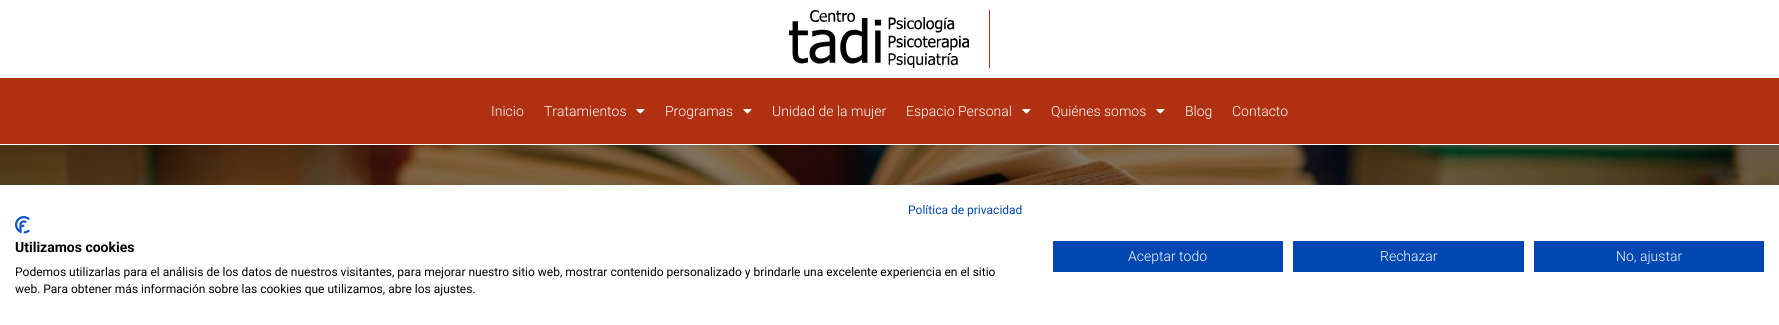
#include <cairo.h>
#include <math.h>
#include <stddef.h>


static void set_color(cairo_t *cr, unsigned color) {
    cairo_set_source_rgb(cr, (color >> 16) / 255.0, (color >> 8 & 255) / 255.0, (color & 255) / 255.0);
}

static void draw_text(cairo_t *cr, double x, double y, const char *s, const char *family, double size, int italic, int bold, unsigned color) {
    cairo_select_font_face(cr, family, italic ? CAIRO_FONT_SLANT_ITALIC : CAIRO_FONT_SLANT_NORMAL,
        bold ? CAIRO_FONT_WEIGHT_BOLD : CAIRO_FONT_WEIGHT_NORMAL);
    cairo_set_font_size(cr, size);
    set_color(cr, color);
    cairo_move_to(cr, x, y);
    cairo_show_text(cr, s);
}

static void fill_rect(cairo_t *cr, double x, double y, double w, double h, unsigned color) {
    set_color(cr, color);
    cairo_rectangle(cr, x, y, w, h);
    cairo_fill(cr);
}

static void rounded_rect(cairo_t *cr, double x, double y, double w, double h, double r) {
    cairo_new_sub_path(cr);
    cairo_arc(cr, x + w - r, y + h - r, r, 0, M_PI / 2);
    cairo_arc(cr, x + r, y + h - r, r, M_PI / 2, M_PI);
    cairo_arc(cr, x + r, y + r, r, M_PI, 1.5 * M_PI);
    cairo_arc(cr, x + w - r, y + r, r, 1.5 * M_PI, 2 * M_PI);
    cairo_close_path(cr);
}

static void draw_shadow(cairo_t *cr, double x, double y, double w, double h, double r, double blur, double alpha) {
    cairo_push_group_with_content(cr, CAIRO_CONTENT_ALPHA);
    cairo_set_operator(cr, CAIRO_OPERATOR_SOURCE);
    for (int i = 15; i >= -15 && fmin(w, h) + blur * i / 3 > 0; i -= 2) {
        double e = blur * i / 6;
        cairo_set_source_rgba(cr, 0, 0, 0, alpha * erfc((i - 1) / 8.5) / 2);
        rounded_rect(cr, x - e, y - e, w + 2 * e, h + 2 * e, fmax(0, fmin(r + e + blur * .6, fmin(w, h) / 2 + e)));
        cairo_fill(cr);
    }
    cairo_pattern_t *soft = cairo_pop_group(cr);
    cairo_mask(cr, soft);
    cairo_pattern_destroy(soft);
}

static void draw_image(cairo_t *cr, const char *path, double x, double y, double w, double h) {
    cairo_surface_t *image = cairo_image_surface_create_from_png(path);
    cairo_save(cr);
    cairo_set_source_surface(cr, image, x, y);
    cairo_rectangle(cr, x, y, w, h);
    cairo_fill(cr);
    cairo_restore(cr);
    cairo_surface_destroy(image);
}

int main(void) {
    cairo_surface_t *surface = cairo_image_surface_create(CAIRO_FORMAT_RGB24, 1779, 325);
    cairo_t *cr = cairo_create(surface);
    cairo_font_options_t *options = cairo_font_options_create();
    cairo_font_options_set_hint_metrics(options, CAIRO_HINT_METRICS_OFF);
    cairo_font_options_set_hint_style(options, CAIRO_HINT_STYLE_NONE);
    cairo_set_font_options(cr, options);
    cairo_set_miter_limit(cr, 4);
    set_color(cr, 0xFFFFFF);
    cairo_paint(cr);
    fill_rect(cr, 989, 10, 1, 58, 0xAF3111);
    draw_image(cr, "assets/img1.png", 789, 10, 180, 58);
    fill_rect(cr, 0, 78, 1779, 66, 0xAF3111);
    draw_text(cr, 491, 116, "Inicio", "Roboto Light", 14, 0, 0, 0xFFFFFF);
    draw_text(cr, 544, 116, "Tratamientos", "Roboto Light", 14, 0, 0, 0xFFFFFF);
    draw_image(cr, "assets/img2.png", 636, 109, 9, 5);
    draw_text(cr, 665, 116, "Programas", "Roboto Light", 14, 0, 0, 0xFFFFFF);
    draw_image(cr, "assets/img2.png", 743, 109, 9, 5);
    draw_text(cr, 772, 116, "Unidad de la mujer", "Roboto Light", 14, 0, 0, 0xFFFFFF);
    draw_text(cr, 906, 116, "Espacio Personal", "Roboto Light", 14, 0, 0, 0xFFFFFF);
    draw_image(cr, "assets/img2.png", 1022, 109, 9, 5);
    draw_text(cr, 1051, 116, "Quiénes somos", "Roboto Light", 14, 0, 0, 0xFFFFFF);
    draw_image(cr, "assets/img2.png", 1156, 109, 9, 5);
    draw_text(cr, 1185, 116, "Blog", "Roboto Light", 14, 0, 0, 0xFFFFFF);
    draw_text(cr, 1232, 116, "Contacto", "Roboto Light", 14, 0, 0, 0xFFFFFF);
    draw_image(cr, "assets/img3.png", 0, 145, 1779, 40);
    set_color(cr, 0x000000);
    draw_shadow(cr, 0, 185, 1779, 140, 0, 12, 0.1);
    fill_rect(cr, 0, 185, 1779, 140, 0xFFFFFF);
    draw_text(cr, 908, 214, "Política de privacidad", "Roboto", 12, 0, 0, 0x0047B2);
    draw_image(cr, "assets/img4.png", 15, 216, 15, 18);
    draw_text(cr, 15, 252, "Utilizamos cookies", "Roboto", 14, 0, 1, 0x000000);
    draw_text(cr, 15, 276, "Podemos utilizarlas para el análisis de los datos de nuestros visitantes, para mejorar nuestro sitio web, mostrar contenido personalizado y brindarle una excelente experiencia en el sitio", "Roboto", 12, 0, 0, 0x000000);
    draw_text(cr, 15, 293, "web. Para obtener más información sobre las cookies que utilizamos, abre los ajustes.", "Roboto", 12, 0, 0, 0x000000);
    fill_rect(cr, 1053, 241, 230, 31, 0x0047B2);
    draw_text(cr, 1128, 261, "Aceptar todo", "Roboto Light", 14, 0, 0, 0xFFFFFF);
    fill_rect(cr, 1293, 241, 231, 31, 0x0047B2);
    draw_text(cr, 1380, 261, "Rechazar", "Roboto Light", 14, 0, 0, 0xFFFFFF);
    fill_rect(cr, 1534, 241, 230, 31, 0x0047B2);
    draw_text(cr, 1616, 261, "No, ajustar", "Roboto Light", 14, 0, 0, 0xFFFFFF);
    cairo_surface_write_to_png(surface, "output.png");
    cairo_font_options_destroy(options);
    cairo_destroy(cr);
    cairo_surface_destroy(surface);
    return 0;
}
